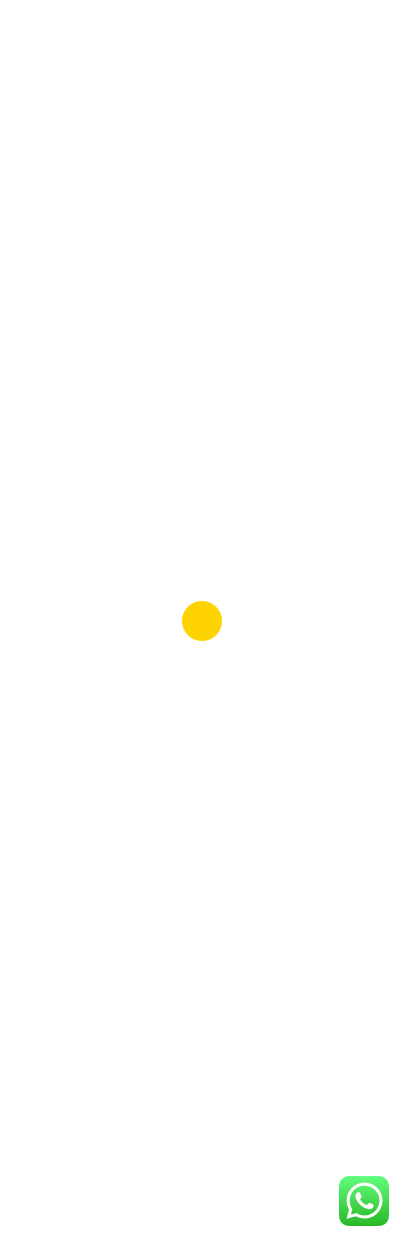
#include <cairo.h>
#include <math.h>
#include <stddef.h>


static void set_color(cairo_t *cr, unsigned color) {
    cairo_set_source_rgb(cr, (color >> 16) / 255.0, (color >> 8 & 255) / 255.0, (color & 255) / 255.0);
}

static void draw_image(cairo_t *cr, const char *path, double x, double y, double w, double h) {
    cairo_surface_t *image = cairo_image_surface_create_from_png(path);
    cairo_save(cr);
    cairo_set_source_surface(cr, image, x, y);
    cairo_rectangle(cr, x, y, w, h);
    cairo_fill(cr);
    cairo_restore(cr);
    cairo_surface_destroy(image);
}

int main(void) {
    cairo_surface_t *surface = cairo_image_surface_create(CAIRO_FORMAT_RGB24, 404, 1241);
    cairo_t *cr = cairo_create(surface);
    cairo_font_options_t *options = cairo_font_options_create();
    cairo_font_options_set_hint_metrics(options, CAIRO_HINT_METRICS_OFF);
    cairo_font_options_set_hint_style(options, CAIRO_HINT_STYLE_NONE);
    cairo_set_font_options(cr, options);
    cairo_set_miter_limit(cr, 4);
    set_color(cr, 0xFFFFFF);
    cairo_paint(cr);
    set_color(cr, 0xFFD302);
    cairo_arc(cr, 202, 621, 20, 0, 2 * M_PI);
    cairo_fill(cr);
    draw_image(cr, "assets/img1.png", 339, 1176, 50, 50);
    cairo_surface_write_to_png(surface, "output.png");
    cairo_font_options_destroy(options);
    cairo_destroy(cr);
    cairo_surface_destroy(surface);
    return 0;
}
